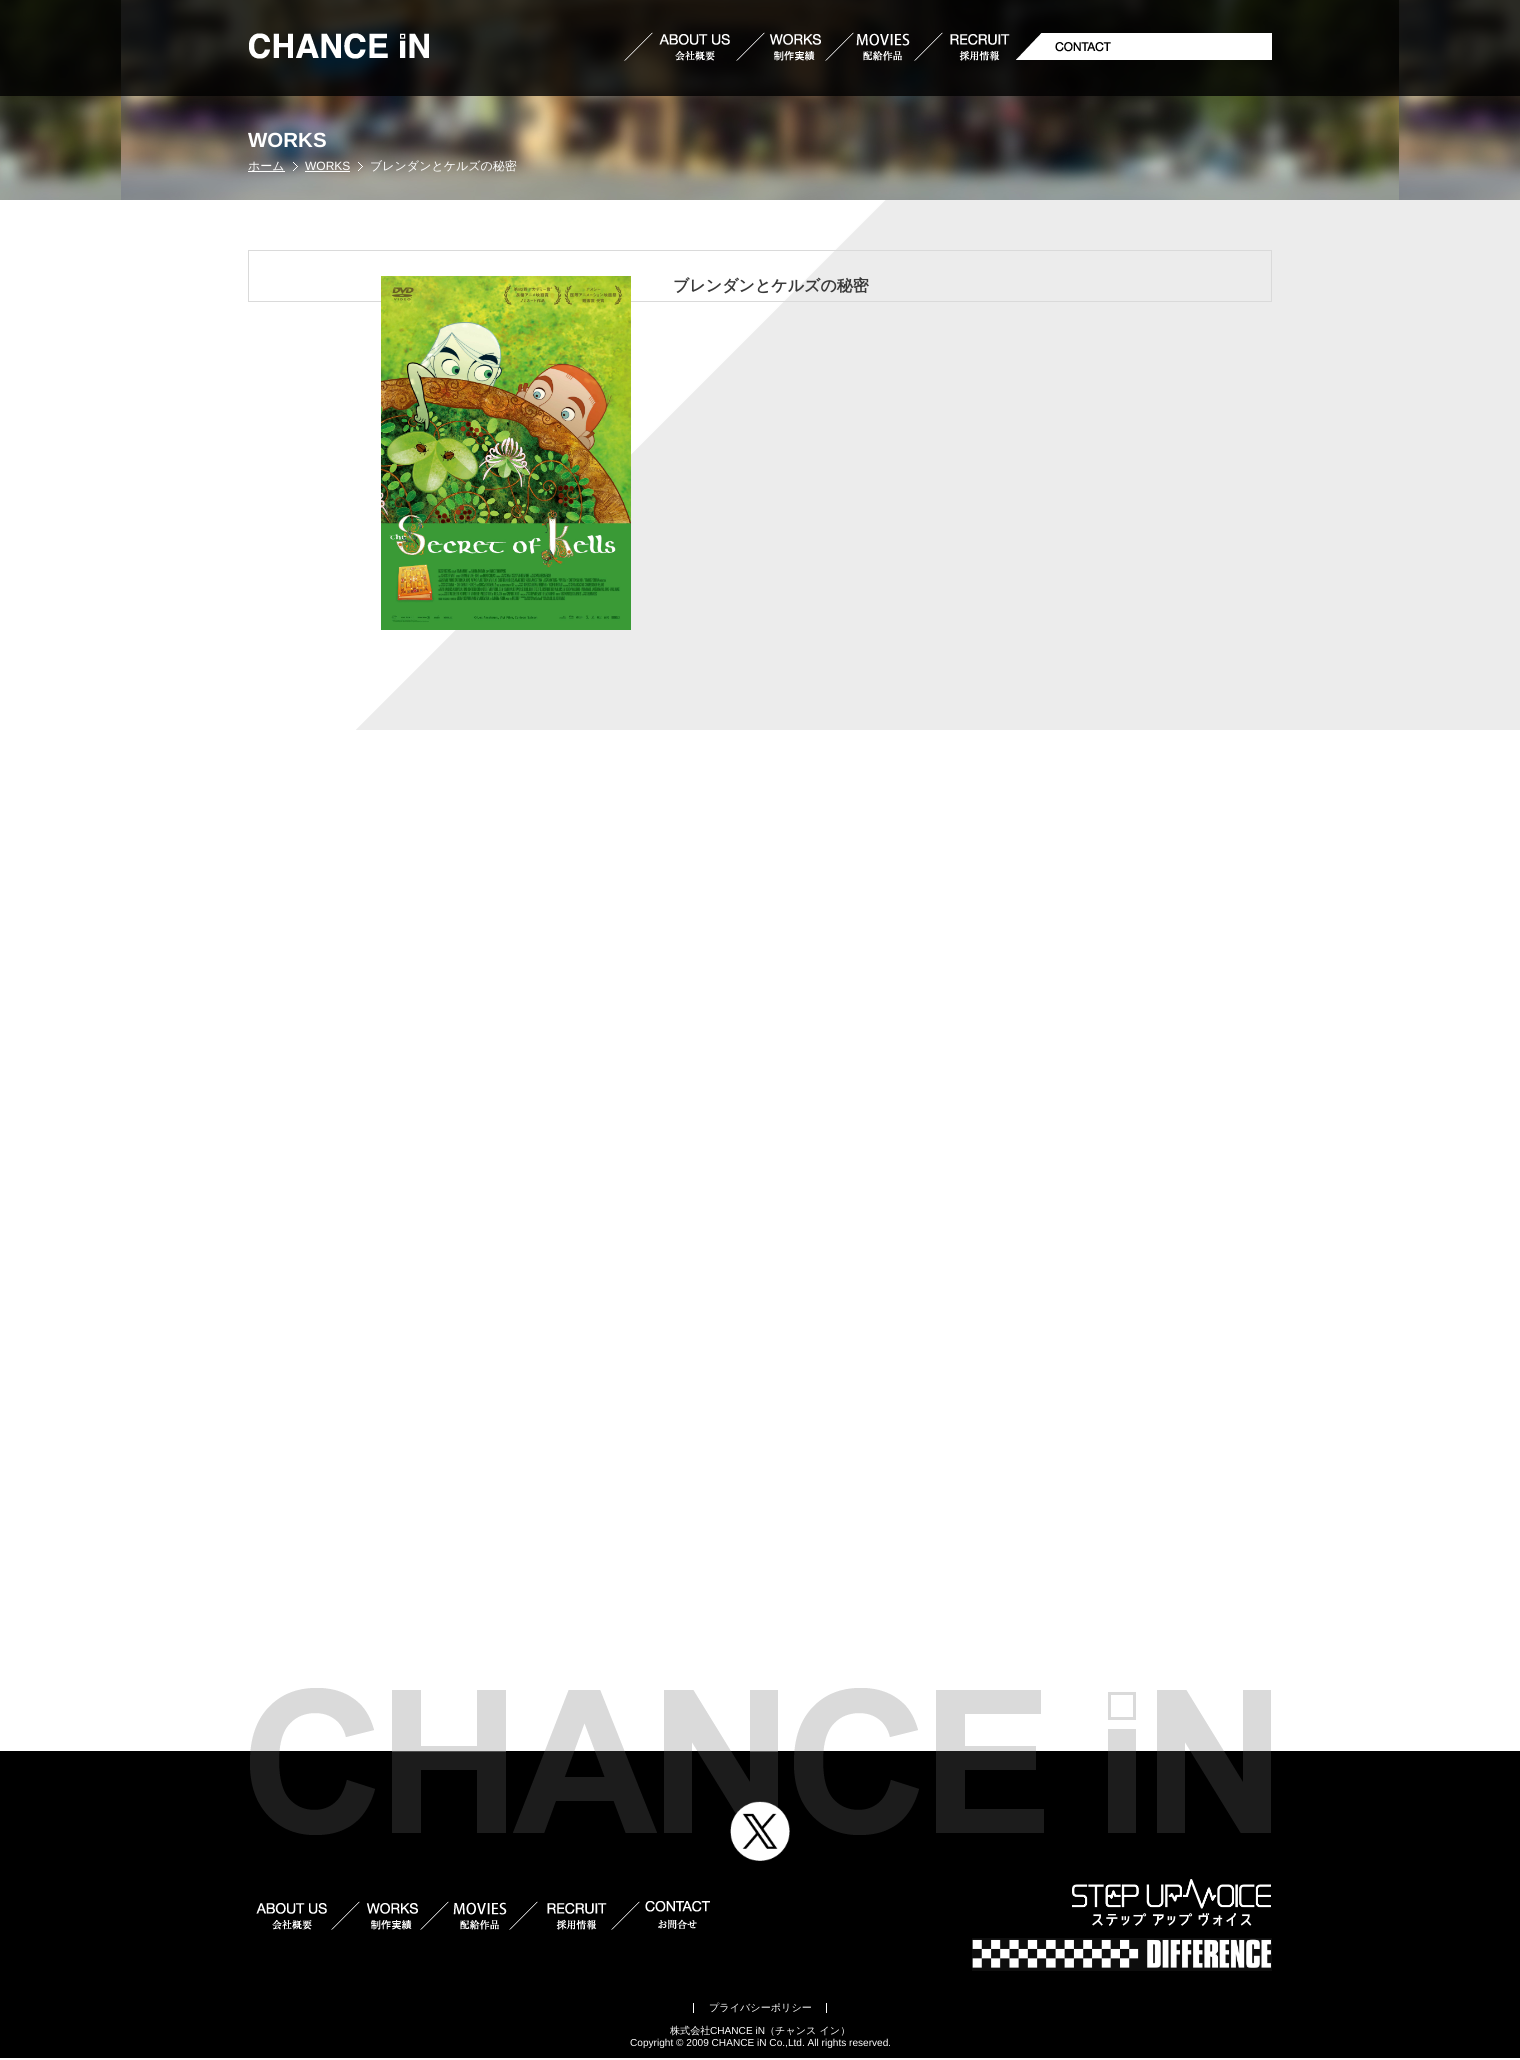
#include <cairo.h>
#include <math.h>
#include <stddef.h>


static void set_color(cairo_t *cr, unsigned color) {
    cairo_set_source_rgb(cr, (color >> 16) / 255.0, (color >> 8 & 255) / 255.0, (color & 255) / 255.0);
}

static void draw_text(cairo_t *cr, double x, double y, const char *s, const char *family, double size, int italic, int bold, unsigned color) {
    cairo_select_font_face(cr, family, italic ? CAIRO_FONT_SLANT_ITALIC : CAIRO_FONT_SLANT_NORMAL,
        bold ? CAIRO_FONT_WEIGHT_BOLD : CAIRO_FONT_WEIGHT_NORMAL);
    cairo_set_font_size(cr, size);
    set_color(cr, color);
    cairo_move_to(cr, x, y);
    cairo_show_text(cr, s);
}

static void fill_rect(cairo_t *cr, double x, double y, double w, double h, unsigned color) {
    set_color(cr, color);
    cairo_rectangle(cr, x, y, w, h);
    cairo_fill(cr);
}

static void draw_image(cairo_t *cr, const char *path, double x, double y, double w, double h) {
    cairo_surface_t *image = cairo_image_surface_create_from_png(path);
    cairo_save(cr);
    cairo_set_source_surface(cr, image, x, y);
    cairo_rectangle(cr, x, y, w, h);
    cairo_fill(cr);
    cairo_restore(cr);
    cairo_surface_destroy(image);
}

int main(void) {
    cairo_surface_t *surface = cairo_image_surface_create(CAIRO_FORMAT_RGB24, 1520, 2060);
    cairo_t *cr = cairo_create(surface);
    cairo_font_options_t *options = cairo_font_options_create();
    cairo_font_options_set_hint_metrics(options, CAIRO_HINT_METRICS_OFF);
    cairo_font_options_set_hint_style(options, CAIRO_HINT_STYLE_NONE);
    cairo_set_font_options(cr, options);
    cairo_set_miter_limit(cr, 4);
    set_color(cr, 0xFFFFFF);
    cairo_paint(cr);
    draw_image(cr, "assets/img11.png", 0, 0, 1520, 200);
    cairo_set_source_rgba(cr, 0, 0, 0, 0.8);
    cairo_rectangle(cr, 0, 0, 1520, 96);
    cairo_fill(cr);
    draw_image(cr, "assets/img1.png", 249, 33, 180, 26);
    draw_image(cr, "assets/img2.png", 624, 32, 29, 29);
    draw_image(cr, "assets/img3.png", 659, 34, 71, 27);
    draw_image(cr, "assets/img4.png", 736, 32, 29, 29);
    draw_image(cr, "assets/img5.png", 769, 34, 52, 27);
    draw_image(cr, "assets/img6.png", 825, 32, 29, 29);
    draw_image(cr, "assets/img7.png", 856, 33, 54, 28);
    draw_image(cr, "assets/img8.png", 914, 32, 29, 29);
    draw_image(cr, "assets/img9.png", 950, 34, 60, 27);
    draw_image(cr, "assets/img10.png", 1016, 33, 256, 27);
    draw_text(cr, 248, 147, "WORKS", "Liberation Sans", 20.5, 0, 1, 0xFFFFFF);
    draw_image(cr, "assets/img12.png", 293, 162, 5, 9);
    fill_rect(cr, 248, 171, 37, 1, 0xFFFFFF);
    draw_text(cr, 248, 170, "ホーム", "WenQuanYi Zen Hei Medium", 12, 0, 0, 0xFFFFFF);
    draw_image(cr, "assets/img13.png", 358, 162, 5, 9);
    draw_text(cr, 305, 170, "WORKS", "Liberation Sans", 12, 0, 0, 0xFFFFFF);
    fill_rect(cr, 305, 171, 45, 1, 0xFFFFFF);
    draw_text(cr, 370, 170, "ブレンダンとケルズの秘密", "WenQuanYi Zen Hei Medium", 12, 0, 0, 0xFFFFFF);
    draw_image(cr, "assets/img14.png", 356, 200, 1164, 530);
    cairo_rectangle(cr, 248.5, 250.5, 1023, 51);
    set_color(cr, 0xDADADA);
    cairo_set_line_width(cr, 1);
    cairo_stroke(cr);
    draw_image(cr, "assets/img15.png", 381, 276, 250, 354);
    draw_text(cr, 673, 291, "ブレンダンとケルズの秘密", "WenQuanYi Zen Hei", 16, 0, 1, 0x3A3A3A);
    fill_rect(cr, 0, 1751, 1520, 307, 0x000000);
    draw_image(cr, "assets/img16.png", 250, 1688, 1021, 147);
    draw_image(cr, "assets/img17.png", 730, 1801, 60, 60);
    draw_image(cr, "assets/img18.png", 331, 1901, 29, 29);
    draw_image(cr, "assets/img19.png", 256, 1903, 71, 27);
    draw_image(cr, "assets/img18.png", 420, 1901, 29, 29);
    draw_image(cr, "assets/img20.png", 366, 1903, 52, 27);
    draw_image(cr, "assets/img18.png", 509, 1901, 29, 29);
    draw_image(cr, "assets/img21.png", 453, 1902, 54, 28);
    draw_image(cr, "assets/img18.png", 611, 1901, 29, 29);
    draw_image(cr, "assets/img22.png", 547, 1903, 60, 27);
    draw_image(cr, "assets/img23.png", 645, 1901, 65, 28);
    draw_image(cr, "assets/img24.png", 1072, 1879, 199, 47);
    draw_image(cr, "assets/img25.png", 972, 1938, 300, 33);
    fill_rect(cr, 826, 2003, 1, 10, 0xFFFFFF);
    fill_rect(cr, 693, 2003, 1, 10, 0xFFFFFF);
    draw_text(cr, 709, 2011, "プライバシーポリシー", "WenQuanYi Zen Hei Medium", 10.1, 0, 0, 0xFFFFFF);
    draw_text(cr, 670, 2034, "株式会社", "WenQuanYi Zen Hei Medium", 10.1, 0, 0, 0xFFFFFF);
    draw_text(cr, 710, 2034, "CHANCE iN", "Liberation Sans", 10.1, 0, 0, 0xFFFFFF);
    draw_text(cr, 765, 2034, "（チャンス イン）", "WenQuanYi Zen Hei Medium", 10.1, 0, 0, 0xFFFFFF);
    draw_text(cr, 630, 2046, "Copyright © 2009 CHANCE iN Co.,Ltd. All rights reserved.", "Liberation Sans", 10.1, 0, 0, 0xFFFFFF);
    cairo_surface_write_to_png(surface, "output.png");
    cairo_font_options_destroy(options);
    cairo_destroy(cr);
    cairo_surface_destroy(surface);
    return 0;
}
